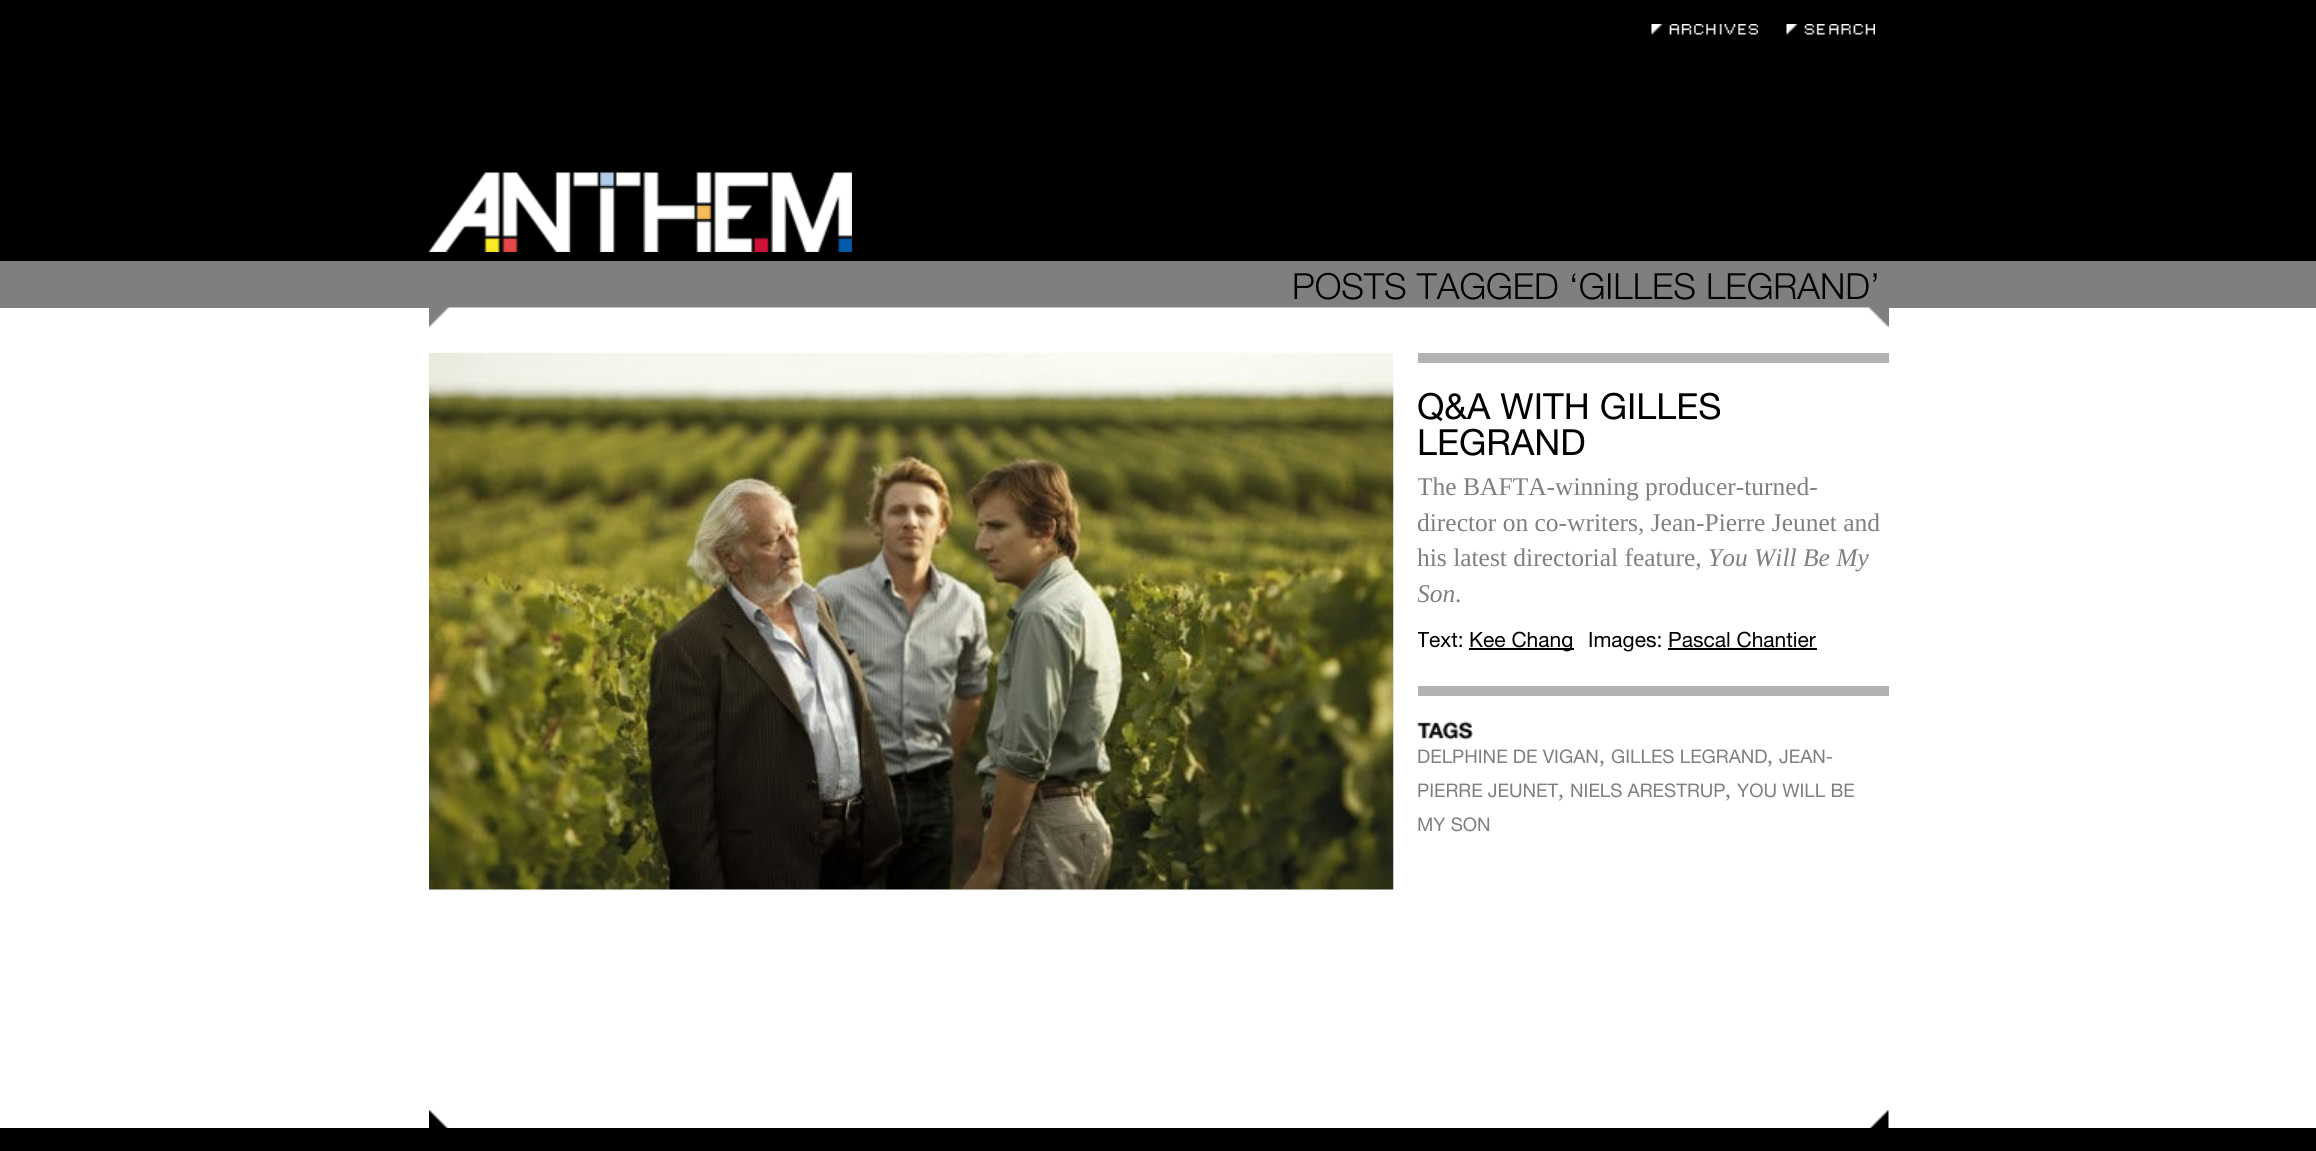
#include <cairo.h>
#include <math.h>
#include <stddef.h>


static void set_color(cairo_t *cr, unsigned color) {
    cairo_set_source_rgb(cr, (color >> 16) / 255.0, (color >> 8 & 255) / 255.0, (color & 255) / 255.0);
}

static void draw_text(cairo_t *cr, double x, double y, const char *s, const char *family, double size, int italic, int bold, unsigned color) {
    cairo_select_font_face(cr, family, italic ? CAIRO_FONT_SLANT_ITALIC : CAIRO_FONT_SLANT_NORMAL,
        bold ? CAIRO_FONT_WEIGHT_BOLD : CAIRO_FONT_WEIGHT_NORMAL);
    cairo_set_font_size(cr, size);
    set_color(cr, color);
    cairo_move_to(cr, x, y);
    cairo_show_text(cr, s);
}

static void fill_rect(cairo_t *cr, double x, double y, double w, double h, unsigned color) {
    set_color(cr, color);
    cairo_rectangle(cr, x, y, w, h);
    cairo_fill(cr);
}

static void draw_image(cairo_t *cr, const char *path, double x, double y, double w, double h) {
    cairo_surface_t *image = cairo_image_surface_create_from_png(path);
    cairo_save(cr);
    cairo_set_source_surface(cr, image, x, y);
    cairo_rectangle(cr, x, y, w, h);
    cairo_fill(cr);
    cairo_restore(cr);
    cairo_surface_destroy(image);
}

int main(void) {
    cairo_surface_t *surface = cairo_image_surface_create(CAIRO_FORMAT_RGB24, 2316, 1151);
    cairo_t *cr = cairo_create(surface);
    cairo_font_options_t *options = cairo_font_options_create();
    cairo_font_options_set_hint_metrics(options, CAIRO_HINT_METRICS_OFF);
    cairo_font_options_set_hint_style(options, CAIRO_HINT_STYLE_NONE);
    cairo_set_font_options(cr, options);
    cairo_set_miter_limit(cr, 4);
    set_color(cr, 0xFFFFFF);
    cairo_paint(cr);
    fill_rect(cr, 0, 0, 2316, 261, 0x000000);
    draw_image(cr, "assets/img1.png", 1888, 308, 1, 19);
    draw_image(cr, "assets/img2.png", 1651, 24, 107, 11);
    draw_image(cr, "assets/img3.png", 1786, 24, 89, 11);
    draw_image(cr, "assets/img4.png", 429, 172, 423, 80);
    fill_rect(cr, 0, 261, 2316, 47, 0x7F7F7F);
    draw_image(cr, "assets/img5.png", 429, 307, 1459, 20);
    draw_text(cr, 1292, 299, "POSTS TAGGED ‘GILLES LEGRAND’", "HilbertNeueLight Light", 36, 0, 0, 0x000000);
    draw_image(cr, "assets/img6.png", 429, 352, 965, 538);
    fill_rect(cr, 1418, 353, 471, 10, 0xB2B2B2);
    draw_text(cr, 1417, 419, "Q&A WITH GILLES", "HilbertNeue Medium", 36, 0, 0, 0x000000);
    draw_text(cr, 1417, 455, "LEGRAND", "HilbertNeue Medium", 36, 0, 0, 0x000000);
    cairo_save(cr);
    cairo_rectangle(cr, 1418, 363, 471, 323);
    cairo_clip(cr);
    draw_text(cr, 1417, 495, "The BAFTA-winning producer-turned-", "Liberation Serif", 25.5, 0, 0, 0x7F7F7F);
    draw_text(cr, 1417, 531, "director on co-writers, Jean-Pierre Jeunet and", "Liberation Serif", 25.5, 0, 0, 0x7F7F7F);
    cairo_restore(cr);
    draw_text(cr, 1417, 566, "his latest directorial feature,", "Liberation Serif", 25.5, 0, 0, 0x7F7F7F);
    draw_text(cr, 1708, 566, "You Will Be My", "Liberation Serif", 25.5, 1, 0, 0x7F7F7F);
    cairo_save(cr);
    cairo_rectangle(cr, 1418, 363, 471, 323);
    cairo_clip(cr);
    draw_text(cr, 1417, 602, "Son", "Liberation Serif", 25.5, 1, 0, 0x7F7F7F);
    cairo_restore(cr);
    draw_text(cr, 1455, 602, ".", "Liberation Serif", 25.5, 0, 0, 0x7F7F7F);
    cairo_save(cr);
    cairo_rectangle(cr, 1418, 627, 471, 26);
    cairo_clip(cr);
    draw_text(cr, 1417, 647, "Text:", "HilbertNeue Medium", 21, 0, 0, 0x000000);
    cairo_restore(cr);
    fill_rect(cr, 1469, 648, 105, 2, 0x000000);
    draw_text(cr, 1469, 647, "Kee Chang", "HilbertNeue Medium", 21, 0, 0, 0x000000);
    draw_text(cr, 1588, 647, "Images: Pascal Chantier", "HilbertNeue Medium", 21, 0, 0, 0x000000);
    fill_rect(cr, 1668, 648, 149, 2, 0x000000);
    fill_rect(cr, 1418, 686, 471, 10, 0xB2B2B2);
    draw_image(cr, "assets/img7.png", 1417, 721, 56, 19);
    draw_text(cr, 1417, 763, "DELPHINE DE VIGAN", "HilbertNeue Medium", 18.75, 0, 0, 0x7F7F7F);
    draw_text(cr, 1599, 763, ",", "Liberation Serif", 24, 0, 0, 0x7F7F7F);
    draw_text(cr, 1611, 763, "GILLES LEGRAND", "HilbertNeue Medium", 18.75, 0, 0, 0x7F7F7F);
    draw_text(cr, 1767, 763, ",", "Liberation Serif", 24, 0, 0, 0x7F7F7F);
    draw_text(cr, 1779, 763, "JEAN-", "HilbertNeue Medium", 18.75, 0, 0, 0x7F7F7F);
    draw_text(cr, 1417, 797, "PIERRE JEUNET", "HilbertNeue Medium", 18.75, 0, 0, 0x7F7F7F);
    draw_text(cr, 1558, 797, ",", "Liberation Serif", 24, 0, 0, 0x7F7F7F);
    draw_text(cr, 1570, 797, "NIELS ARESTRUP", "HilbertNeue Medium", 18.75, 0, 0, 0x7F7F7F);
    draw_text(cr, 1725, 797, ",", "Liberation Serif", 24, 0, 0, 0x7F7F7F);
    draw_text(cr, 1737, 797, "YOU WILL BE", "HilbertNeue Medium", 18.75, 0, 0, 0x7F7F7F);
    draw_text(cr, 1417, 831, "MY SON", "HilbertNeue Medium", 18.75, 0, 0, 0x7F7F7F);
    draw_image(cr, "assets/img8.png", 429, 1110, 1460, 18);
    fill_rect(cr, 0, 1128, 2316, 23, 0x000000);
    cairo_surface_write_to_png(surface, "output.png");
    cairo_font_options_destroy(options);
    cairo_destroy(cr);
    cairo_surface_destroy(surface);
    return 0;
}
